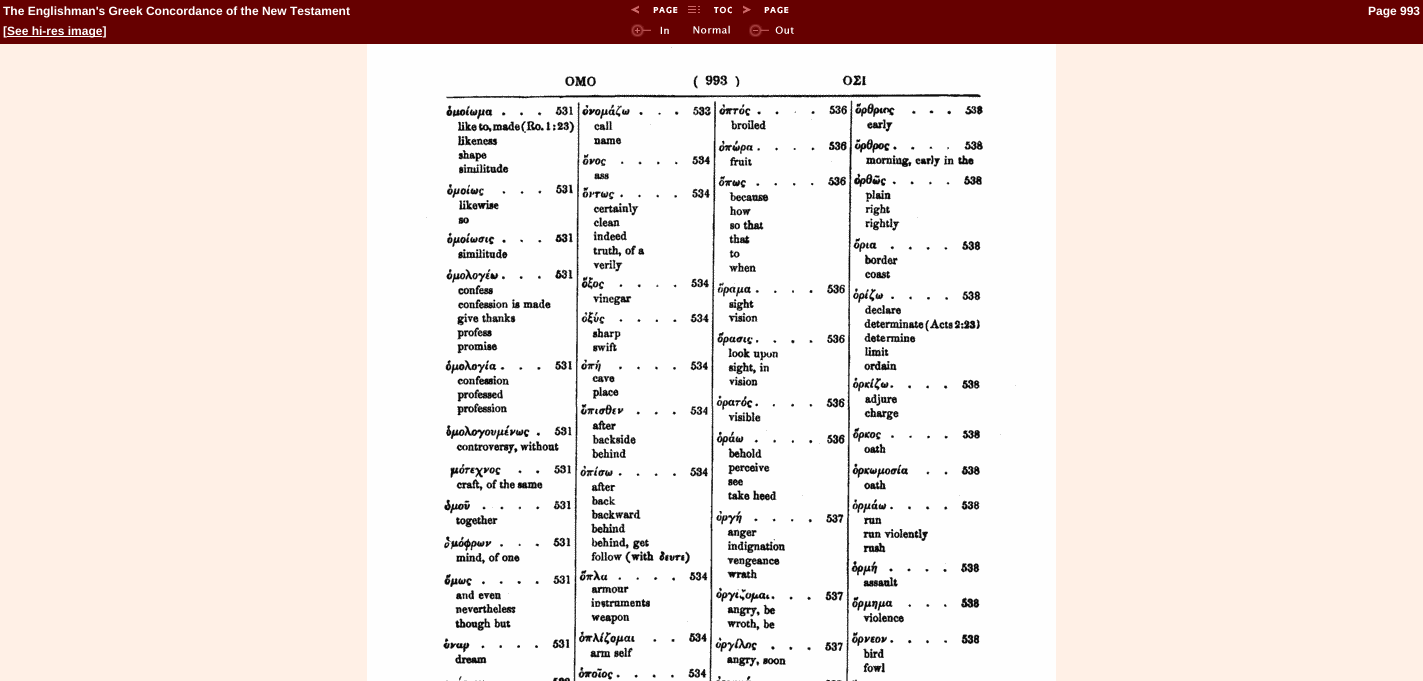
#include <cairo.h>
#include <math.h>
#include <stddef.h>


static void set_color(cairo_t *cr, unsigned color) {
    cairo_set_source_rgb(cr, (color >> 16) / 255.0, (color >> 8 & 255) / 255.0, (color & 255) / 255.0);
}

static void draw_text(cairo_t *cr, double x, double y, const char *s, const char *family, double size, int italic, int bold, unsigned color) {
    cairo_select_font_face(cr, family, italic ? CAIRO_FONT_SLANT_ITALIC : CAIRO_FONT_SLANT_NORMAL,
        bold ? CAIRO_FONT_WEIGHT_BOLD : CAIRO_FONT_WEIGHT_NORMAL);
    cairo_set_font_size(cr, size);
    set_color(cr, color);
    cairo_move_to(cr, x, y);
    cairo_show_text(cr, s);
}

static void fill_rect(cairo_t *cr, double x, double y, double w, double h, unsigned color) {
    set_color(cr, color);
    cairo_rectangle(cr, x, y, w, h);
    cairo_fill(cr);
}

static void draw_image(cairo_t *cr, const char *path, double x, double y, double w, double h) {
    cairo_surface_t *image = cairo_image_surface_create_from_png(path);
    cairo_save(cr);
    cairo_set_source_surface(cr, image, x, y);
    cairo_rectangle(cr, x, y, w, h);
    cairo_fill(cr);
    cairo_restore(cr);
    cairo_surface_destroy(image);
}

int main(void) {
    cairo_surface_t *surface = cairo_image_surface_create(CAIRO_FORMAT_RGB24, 1423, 681);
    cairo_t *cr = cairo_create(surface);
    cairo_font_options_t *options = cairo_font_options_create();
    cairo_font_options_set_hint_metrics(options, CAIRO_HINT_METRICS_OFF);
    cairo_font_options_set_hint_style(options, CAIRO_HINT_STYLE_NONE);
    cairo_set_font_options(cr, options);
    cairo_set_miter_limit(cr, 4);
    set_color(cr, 0xFFF0E6);
    cairo_paint(cr);
    fill_rect(cr, 0, 0, 1423, 44, 0x660000);
    draw_text(cr, 3, 15, "The Englishman's Greek Concordance of the New Testament", "Liberation Sans", 12, 0, 1, 0xFFFFFF);
    draw_image(cr, "assets/img1.png", 631, 5, 47, 9);
    draw_image(cr, "assets/img2.png", 688, 6, 44, 8);
    draw_image(cr, "assets/img3.png", 743, 5, 46, 9);
    draw_text(cr, 1368, 15, "Page 993", "Liberation Sans", 12, 0, 1, 0xFFFFFF);
    draw_text(cr, 3, 35, "[", "Liberation Sans", 12, 0, 1, 0xFFFFFF);
    fill_rect(cr, 7, 36, 95, 1, 0xFFFFFF);
    draw_text(cr, 7, 35, "See hi-res image]", "Liberation Sans", 12, 0, 1, 0xFFFFFF);
    draw_image(cr, "assets/img4.png", 631, 24, 38, 13);
    draw_image(cr, "assets/img5.png", 693, 25, 37, 9);
    draw_image(cr, "assets/img6.png", 749, 24, 45, 13);
    draw_image(cr, "assets/img7.png", 367, 44, 689, 637);
    cairo_surface_write_to_png(surface, "output.png");
    cairo_font_options_destroy(options);
    cairo_destroy(cr);
    cairo_surface_destroy(surface);
    return 0;
}
